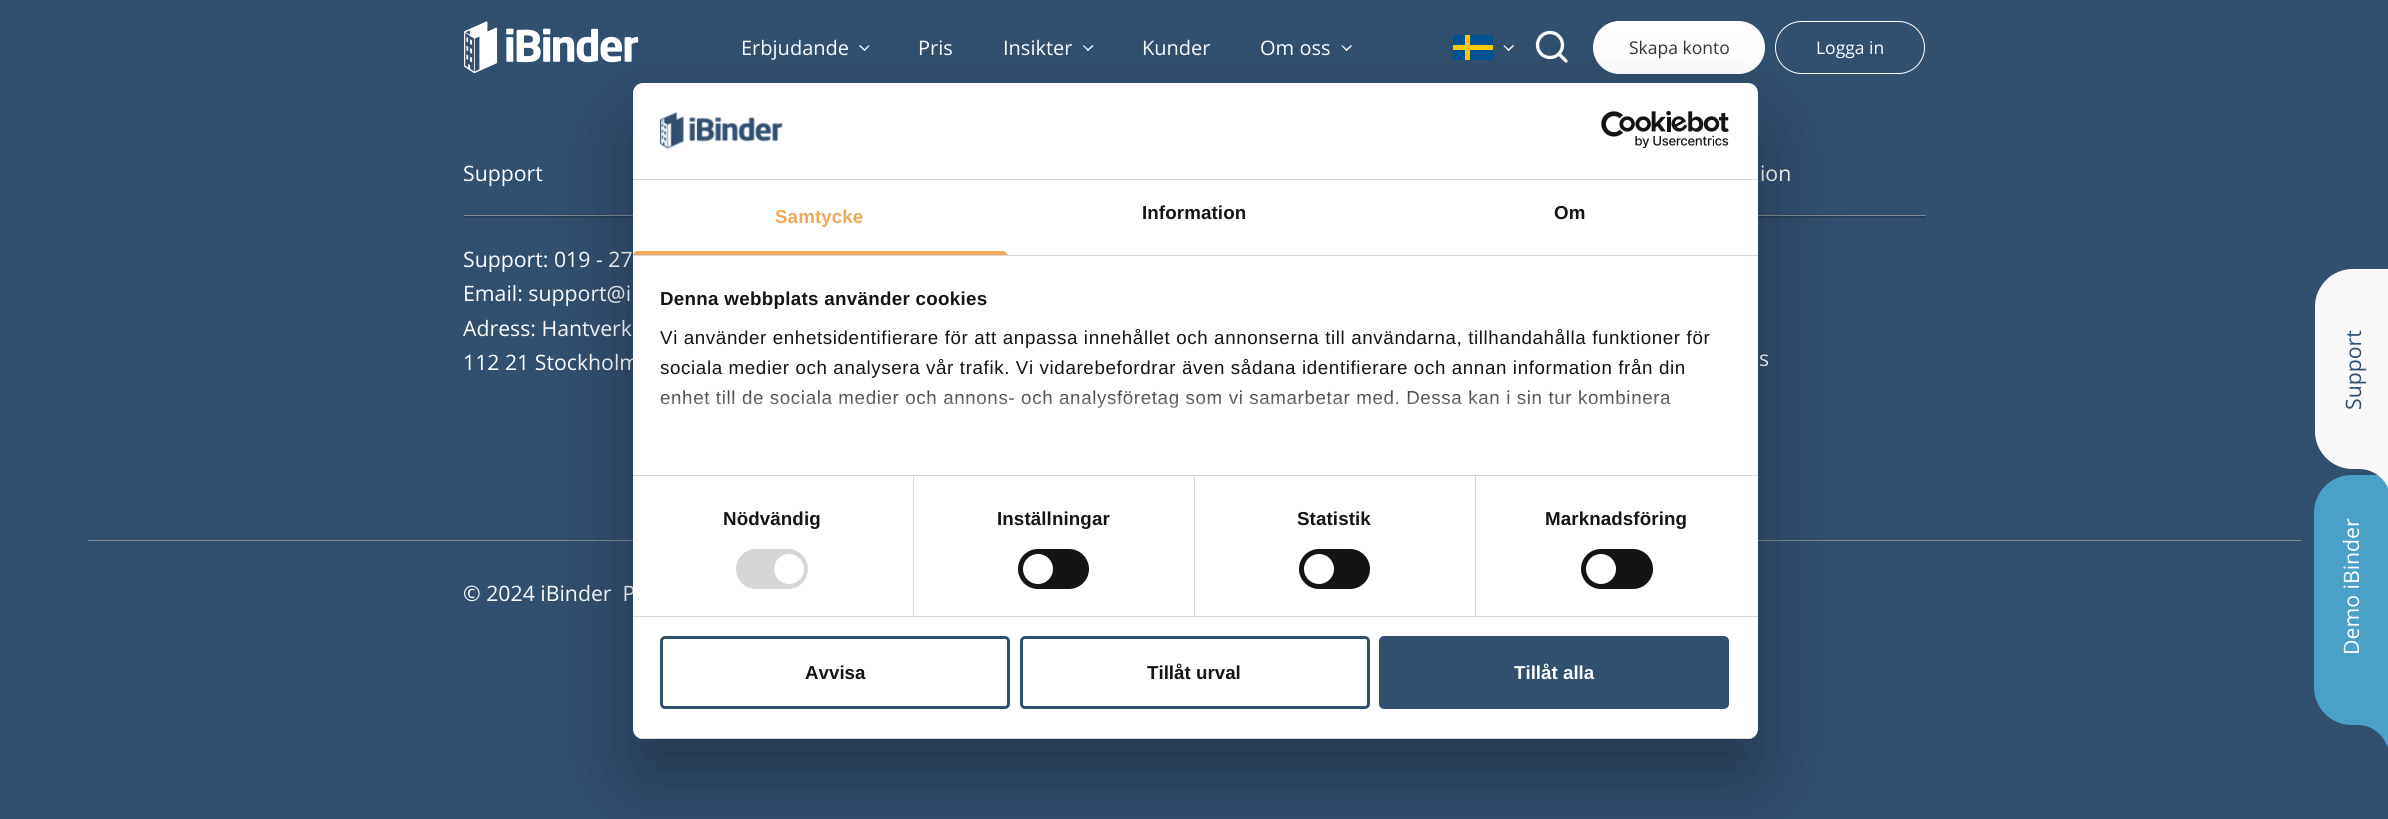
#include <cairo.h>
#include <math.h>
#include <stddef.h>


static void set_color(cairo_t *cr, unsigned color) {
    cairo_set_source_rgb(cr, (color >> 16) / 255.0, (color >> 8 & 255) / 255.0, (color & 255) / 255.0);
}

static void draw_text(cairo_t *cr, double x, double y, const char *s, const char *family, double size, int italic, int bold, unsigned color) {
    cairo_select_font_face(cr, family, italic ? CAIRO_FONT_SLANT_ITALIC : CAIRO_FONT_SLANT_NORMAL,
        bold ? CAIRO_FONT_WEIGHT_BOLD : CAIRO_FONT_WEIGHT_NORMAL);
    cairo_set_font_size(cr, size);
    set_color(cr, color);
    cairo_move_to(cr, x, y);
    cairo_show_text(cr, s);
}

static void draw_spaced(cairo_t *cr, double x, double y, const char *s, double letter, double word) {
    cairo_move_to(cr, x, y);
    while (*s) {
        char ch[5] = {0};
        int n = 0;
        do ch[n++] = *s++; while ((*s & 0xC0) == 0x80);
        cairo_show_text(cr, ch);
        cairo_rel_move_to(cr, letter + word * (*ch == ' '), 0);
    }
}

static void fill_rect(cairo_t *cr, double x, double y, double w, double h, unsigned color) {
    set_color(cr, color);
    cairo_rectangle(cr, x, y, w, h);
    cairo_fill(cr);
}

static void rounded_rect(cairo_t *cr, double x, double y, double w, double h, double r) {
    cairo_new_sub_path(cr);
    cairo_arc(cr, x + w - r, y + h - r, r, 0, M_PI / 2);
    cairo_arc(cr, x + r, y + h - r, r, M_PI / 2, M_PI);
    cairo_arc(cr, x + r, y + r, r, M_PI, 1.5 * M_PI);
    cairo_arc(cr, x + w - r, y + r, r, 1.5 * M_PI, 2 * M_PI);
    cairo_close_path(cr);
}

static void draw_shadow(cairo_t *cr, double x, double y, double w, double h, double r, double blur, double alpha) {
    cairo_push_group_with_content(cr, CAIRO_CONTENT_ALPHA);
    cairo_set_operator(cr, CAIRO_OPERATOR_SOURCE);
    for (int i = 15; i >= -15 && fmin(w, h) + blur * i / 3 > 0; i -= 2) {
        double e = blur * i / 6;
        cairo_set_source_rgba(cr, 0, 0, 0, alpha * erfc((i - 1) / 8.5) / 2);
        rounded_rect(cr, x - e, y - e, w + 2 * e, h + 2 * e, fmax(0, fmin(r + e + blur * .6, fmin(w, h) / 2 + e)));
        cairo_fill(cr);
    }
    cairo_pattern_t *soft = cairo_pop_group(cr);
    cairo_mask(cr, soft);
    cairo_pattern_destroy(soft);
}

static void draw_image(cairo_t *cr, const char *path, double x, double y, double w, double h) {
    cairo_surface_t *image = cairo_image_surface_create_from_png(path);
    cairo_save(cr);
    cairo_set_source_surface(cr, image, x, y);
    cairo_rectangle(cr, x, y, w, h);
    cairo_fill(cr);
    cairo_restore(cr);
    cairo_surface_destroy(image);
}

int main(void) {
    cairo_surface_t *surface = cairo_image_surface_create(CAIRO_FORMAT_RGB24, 2388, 819);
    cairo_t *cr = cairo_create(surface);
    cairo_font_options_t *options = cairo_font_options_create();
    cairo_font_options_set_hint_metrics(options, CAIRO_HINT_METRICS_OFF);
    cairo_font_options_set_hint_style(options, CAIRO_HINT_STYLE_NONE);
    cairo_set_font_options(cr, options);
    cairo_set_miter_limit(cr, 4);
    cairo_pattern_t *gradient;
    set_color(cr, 0x314F6F);
    cairo_paint(cr);
    draw_image(cr, "assets/img1.png", 464, 21, 175, 52);
    draw_text(cr, 741, 55, "Erbjudande", "Open Sans", 20, 0, 0, 0xFFFFFF);
    cairo_new_path(cr);
    cairo_move_to(cr, 869.5, 46);
    cairo_line_to(cr, 864.5, 51);
    cairo_line_to(cr, 863.5, 50);
    cairo_line_to(cr, 869, 45);
    cairo_close_path(cr);
    cairo_fill(cr);
    cairo_new_path(cr);
    cairo_move_to(cr, 865.5, 50);
    cairo_line_to(cr, 864.5, 51);
    cairo_line_to(cr, 859, 46);
    cairo_line_to(cr, 860, 45);
    cairo_close_path(cr);
    cairo_fill(cr);
    draw_text(cr, 918, 55, "Pris", "Open Sans", 20, 0, 0, 0xFFFFFF);
    draw_text(cr, 1003, 55, "Insikter", "Open Sans", 20, 0, 0, 0xFFFFFF);
    cairo_new_path(cr);
    cairo_move_to(cr, 1093.5, 46);
    cairo_line_to(cr, 1088, 51);
    cairo_line_to(cr, 1087, 50);
    cairo_line_to(cr, 1092.5, 45);
    cairo_close_path(cr);
    cairo_fill(cr);
    cairo_new_path(cr);
    cairo_move_to(cr, 1089, 50);
    cairo_line_to(cr, 1088, 51);
    cairo_line_to(cr, 1083, 46);
    cairo_line_to(cr, 1083.5, 45);
    cairo_close_path(cr);
    cairo_fill(cr);
    draw_text(cr, 1142, 55, "Kunder", "Open Sans", 20, 0, 0, 0xFFFFFF);
    draw_text(cr, 1260, 55, "Om oss", "Open Sans", 20, 0, 0, 0xFFFFFF);
    cairo_new_path(cr);
    cairo_move_to(cr, 1352, 46);
    cairo_line_to(cr, 1346.5, 51);
    cairo_line_to(cr, 1345.5, 50);
    cairo_line_to(cr, 1351, 45);
    cairo_close_path(cr);
    cairo_fill(cr);
    cairo_new_path(cr);
    cairo_move_to(cr, 1347.5, 50);
    cairo_line_to(cr, 1346.5, 51);
    cairo_line_to(cr, 1341.5, 46);
    cairo_line_to(cr, 1342, 45);
    cairo_close_path(cr);
    cairo_fill(cr);
    fill_rect(cr, 1453, 35, 40, 25, 0x005293);
    fill_rect(cr, 1465, 35, 5, 25, 0xFECB00);
    fill_rect(cr, 1453, 45, 40, 5, 0xFECB00);
    set_color(cr, 0xFFFFFF);
    cairo_new_path(cr);
    cairo_move_to(cr, 1514, 46);
    cairo_line_to(cr, 1508.5, 51);
    cairo_line_to(cr, 1507.5, 50);
    cairo_line_to(cr, 1513, 45);
    cairo_close_path(cr);
    cairo_fill(cr);
    cairo_new_path(cr);
    cairo_move_to(cr, 1509.5, 50);
    cairo_line_to(cr, 1508.5, 51);
    cairo_line_to(cr, 1503.5, 46);
    cairo_line_to(cr, 1504, 45);
    cairo_close_path(cr);
    cairo_fill(cr);
    draw_image(cr, "assets/img2.png", 1535, 30, 33, 33);
    rounded_rect(cr, 1593.5, 21.5, 171, 52, 26);
    cairo_fill_preserve(cr);
    cairo_set_line_width(cr, 1);
    cairo_stroke(cr);
    draw_text(cr, 1629, 54, "Skapa konto", "Open Sans", 17.5, 0, 0, 0x30373B);
    rounded_rect(cr, 1775.5, 21.5, 149, 52, 26);
    set_color(cr, 0xFFFFFF);
    cairo_stroke(cr);
    draw_text(cr, 1816, 54, "Logga in", "Open Sans", 17.5, 0, 0, 0xFFFFFF);
    fill_rect(cr, 464, 216, 169, 2, 0x284059);
    fill_rect(cr, 464, 215, 169, 1, 0x7D8892);
    draw_text(cr, 463, 181, "Support", "Open Sans", 21.25, 0, 0, 0xFFFFFF);
    draw_text(cr, 463, 267, "Support: 019 - 27", "Open Sans", 21.25, 0, 0, 0xFFFFFF);
    draw_text(cr, 463, 301, "Email: support@i", "Open Sans", 21.25, 0, 0, 0xFFFFFF);
    draw_text(cr, 463, 336, "Adress: Hantverk", "Open Sans", 21.25, 0, 0, 0xFFFFFF);
    draw_text(cr, 463, 370, "112 21 Stockholm", "Open Sans", 21.25, 0, 0, 0xFFFFFF);
    fill_rect(cr, 1758, 216, 168, 2, 0x284059);
    fill_rect(cr, 1758, 215, 168, 1, 0x7D8892);
    draw_text(cr, 1760, 181, "ion", "Open Sans", 21.25, 0, 0, 0xFFFFFF);
    draw_text(cr, 1759, 366, "s", "Open Sans", 21.25, 0, 0, 0xFFFFFF);
    fill_rect(cr, 88, 540, 2213, 1, 0x7D8892);
    draw_text(cr, 463, 601, "© 2024 iBinder  P", "Open Sans", 21.25, 0, 0, 0xFFFFFF);
    set_color(cr, 0x000000);
    draw_shadow(cr, 633, 123, 1125, 656, 10, 42.5, 0.3);
    set_color(cr, 0xFFFFFF);
    rounded_rect(cr, 633, 83, 1125, 656, 10);
    cairo_fill(cr);
    fill_rect(cr, 633, 179, 1125, 1, 0xD6D6D6);
    draw_image(cr, "assets/img3.png", 660, 112, 123, 37);
    draw_image(cr, "assets/img4.png", 1601, 111, 128, 38);
    fill_rect(cr, 633, 255, 1125, 1, 0xD6D6D6);
    set_color(cr, 0xF0A85A);
    cairo_new_path(cr);
    cairo_move_to(cr, 1008, 255);
    cairo_line_to(cr, 633, 255);
    cairo_line_to(cr, 633, 254);
    cairo_line_to(cr, 636, 251);
    cairo_line_to(cr, 1004, 251);
    cairo_close_path(cr);
    cairo_fill(cr);
    cairo_select_font_face(cr, "Liberation Sans", CAIRO_FONT_SLANT_NORMAL, CAIRO_FONT_WEIGHT_BOLD);
    cairo_set_font_size(cr, 18.75);
    draw_spaced(cr, 775, 223, "Samtycke", 0.1, 0);
    set_color(cr, 0x141414);
    draw_spaced(cr, 1142, 219, "Information", 0.1, 0);
    draw_spaced(cr, 1554, 219, "Om", 0.1, 0);
    fill_rect(cr, 633, 475, 1125, 1, 0xD6D6D6);
    set_color(cr, 0x141414);
    draw_spaced(cr, 660, 305, "Denna webbplats använder cookies", 0.3, 0);
    cairo_select_font_face(cr, "Liberation Sans", CAIRO_FONT_SLANT_NORMAL, CAIRO_FONT_WEIGHT_NORMAL);
    draw_spaced(cr, 660, 344, "Vi använder enhetsidentifierare för att anpassa innehållet och annonserna till användarna, tillhandahålla funktioner för", 0.62, 0);
    draw_spaced(cr, 660, 374, "sociala medier och analysera vår trafik. Vi vidarebefordrar även sådana identifierare och annan information från din", 0.62, 0);
    draw_spaced(cr, 660, 404, "enhet till de sociala medier och annons- och analysföretag som vi samarbetar med. Dessa kan i sin tur kombinera", 0.62, 0);
    gradient = cairo_pattern_create_linear(1182, 475, 1182, 381);
    cairo_pattern_add_color_stop_rgba(gradient, 0, 1, 1, 1, 1);
    cairo_pattern_add_color_stop_rgba(gradient, 0.5, 1, 1, 1, 0.8);
    cairo_pattern_add_color_stop_rgba(gradient, 1, 1, 1, 1, 0);
    cairo_set_source(cr, gradient);
    cairo_pattern_destroy(gradient);
    cairo_rectangle(cr, 660, 390, 1011, 18);
    cairo_fill(cr);
    fill_rect(cr, 633, 616, 1125, 1, 0xD6D6D6);
    fill_rect(cr, 913, 476, 1, 140, 0xD6D6D6);
    cairo_select_font_face(cr, "Liberation Sans", CAIRO_FONT_SLANT_NORMAL, CAIRO_FONT_WEIGHT_BOLD);
    set_color(cr, 0x141414);
    draw_spaced(cr, 723, 525, "Nödvändig", 0.1, 0);
    set_color(cr, 0xD6D6D6);
    rounded_rect(cr, 736, 549, 72, 40, 20);
    cairo_fill(cr);
    set_color(cr, 0xFFFFFF);
    cairo_arc(cr, 789, 569, 15, 0, 2 * M_PI);
    cairo_fill(cr);
    fill_rect(cr, 1194, 476, 1, 140, 0xD6D6D6);
    set_color(cr, 0x141414);
    draw_spaced(cr, 997, 525, "Inställningar", 0.1, 0);
    rounded_rect(cr, 1018, 549, 71, 40, 20);
    cairo_fill(cr);
    set_color(cr, 0xFFFFFF);
    cairo_arc(cr, 1038, 569, 15, 0, 2 * M_PI);
    cairo_fill(cr);
    fill_rect(cr, 1475, 476, 1, 140, 0xD6D6D6);
    set_color(cr, 0x141414);
    draw_spaced(cr, 1297, 525, "Statistik", 0.1, 0);
    rounded_rect(cr, 1299, 549, 71, 40, 20);
    cairo_fill(cr);
    set_color(cr, 0xFFFFFF);
    cairo_arc(cr, 1319, 569, 15, 0, 2 * M_PI);
    cairo_fill(cr);
    set_color(cr, 0x141414);
    draw_spaced(cr, 1545, 525, "Marknadsföring", 0.1, 0);
    rounded_rect(cr, 1581, 549, 72, 40, 20);
    cairo_fill(cr);
    set_color(cr, 0xFFFFFF);
    cairo_arc(cr, 1601, 569, 15, 0, 2 * M_PI);
    cairo_fill(cr);
    cairo_save(cr);
    rounded_rect(cr, 633, 83, 1125, 656, 10);
    cairo_clip(cr);
    fill_rect(cr, 633, 738, 1125, 1, 0xD6D6D6);
    cairo_restore(cr);
    rounded_rect(cr, 661.5, 637.5, 347, 70, 3.5);
    set_color(cr, 0x314F6F);
    cairo_set_line_width(cr, 3);
    cairo_stroke(cr);
    draw_text(cr, 805, 679, "Avvisa", "Liberation Sans", 18.75, 0, 1, 0x141414);
    rounded_rect(cr, 1021.5, 637.5, 347, 70, 3.5);
    set_color(cr, 0x314F6F);
    cairo_stroke(cr);
    draw_text(cr, 1147, 679, "Tillåt urval", "Liberation Sans", 18.75, 0, 1, 0x141414);
    set_color(cr, 0x314F6F);
    rounded_rect(cr, 1380.5, 637.5, 347, 70, 3.5);
    cairo_fill_preserve(cr);
    cairo_stroke(cr);
    draw_text(cr, 1514, 679, "Tillåt alla", "Liberation Sans", 18.75, 0, 1, 0xFFFFFF);
    set_color(cr, 0xF9F9F9);
    cairo_new_path(cr);
    cairo_move_to(cr, 2352.5, 269);
    cairo_line_to(cr, 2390, 269);
    cairo_line_to(cr, 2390, 469);
    cairo_line_to(cr, 2352.5, 469);
    cairo_curve_to(cr, 2332, 469, 2315, 452, 2315, 431.5);
    cairo_line_to(cr, 2315, 306.5);
    cairo_curve_to(cr, 2315, 286, 2332, 269, 2352.5, 269);
    cairo_close_path(cr);
    cairo_fill(cr);
    cairo_save(cr);
    cairo_translate(cr, 2361, 410);
    cairo_rotate(cr, -90 * M_PI / 180);
    draw_text(cr, 0, 0, "Support", "Open Sans", 21.25, 0, 0, 0x314F6F);
    cairo_restore(cr);
    set_color(cr, 0x4AA0C7);
    cairo_new_path(cr);
    cairo_move_to(cr, 2351.5, 475);
    cairo_line_to(cr, 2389, 475);
    cairo_line_to(cr, 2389, 725);
    cairo_line_to(cr, 2351.5, 725);
    cairo_curve_to(cr, 2331, 725, 2314, 708, 2314, 687.5);
    cairo_line_to(cr, 2314, 512.5);
    cairo_curve_to(cr, 2314, 492, 2331, 475, 2351.5, 475);
    cairo_close_path(cr);
    cairo_fill(cr);
    set_color(cr, 0xF9F9F9);
    cairo_new_path(cr);
    cairo_move_to(cr, 2359, 438);
    cairo_line_to(cr, 2359, 469);
    cairo_curve_to(cr, 2373, 469, 2385, 478, 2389, 491);
    cairo_curve_to(cr, 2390, 489, 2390, 487, 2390, 484);
    cairo_line_to(cr, 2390, 469);
    cairo_curve_to(cr, 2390, 452, 2376, 438, 2359, 438);
    cairo_close_path(cr);
    cairo_fill(cr);
    cairo_save(cr);
    cairo_translate(cr, 2359, 655);
    cairo_rotate(cr, -90 * M_PI / 180);
    draw_text(cr, 0, 0, "Demo iBinder", "Open Sans", 21.25, 0, 0, 0xFFFFFF);
    cairo_restore(cr);
    set_color(cr, 0x4AA0C7);
    cairo_new_path(cr);
    cairo_move_to(cr, 2358, 694);
    cairo_line_to(cr, 2358, 725);
    cairo_curve_to(cr, 2372, 725, 2384, 735, 2387, 747);
    cairo_curve_to(cr, 2388, 745, 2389, 743, 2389, 740);
    cairo_line_to(cr, 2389, 725);
    cairo_curve_to(cr, 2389, 708, 2375, 694, 2358, 694);
    cairo_close_path(cr);
    cairo_fill(cr);
    cairo_surface_write_to_png(surface, "output.png");
    cairo_font_options_destroy(options);
    cairo_destroy(cr);
    cairo_surface_destroy(surface);
    return 0;
}
